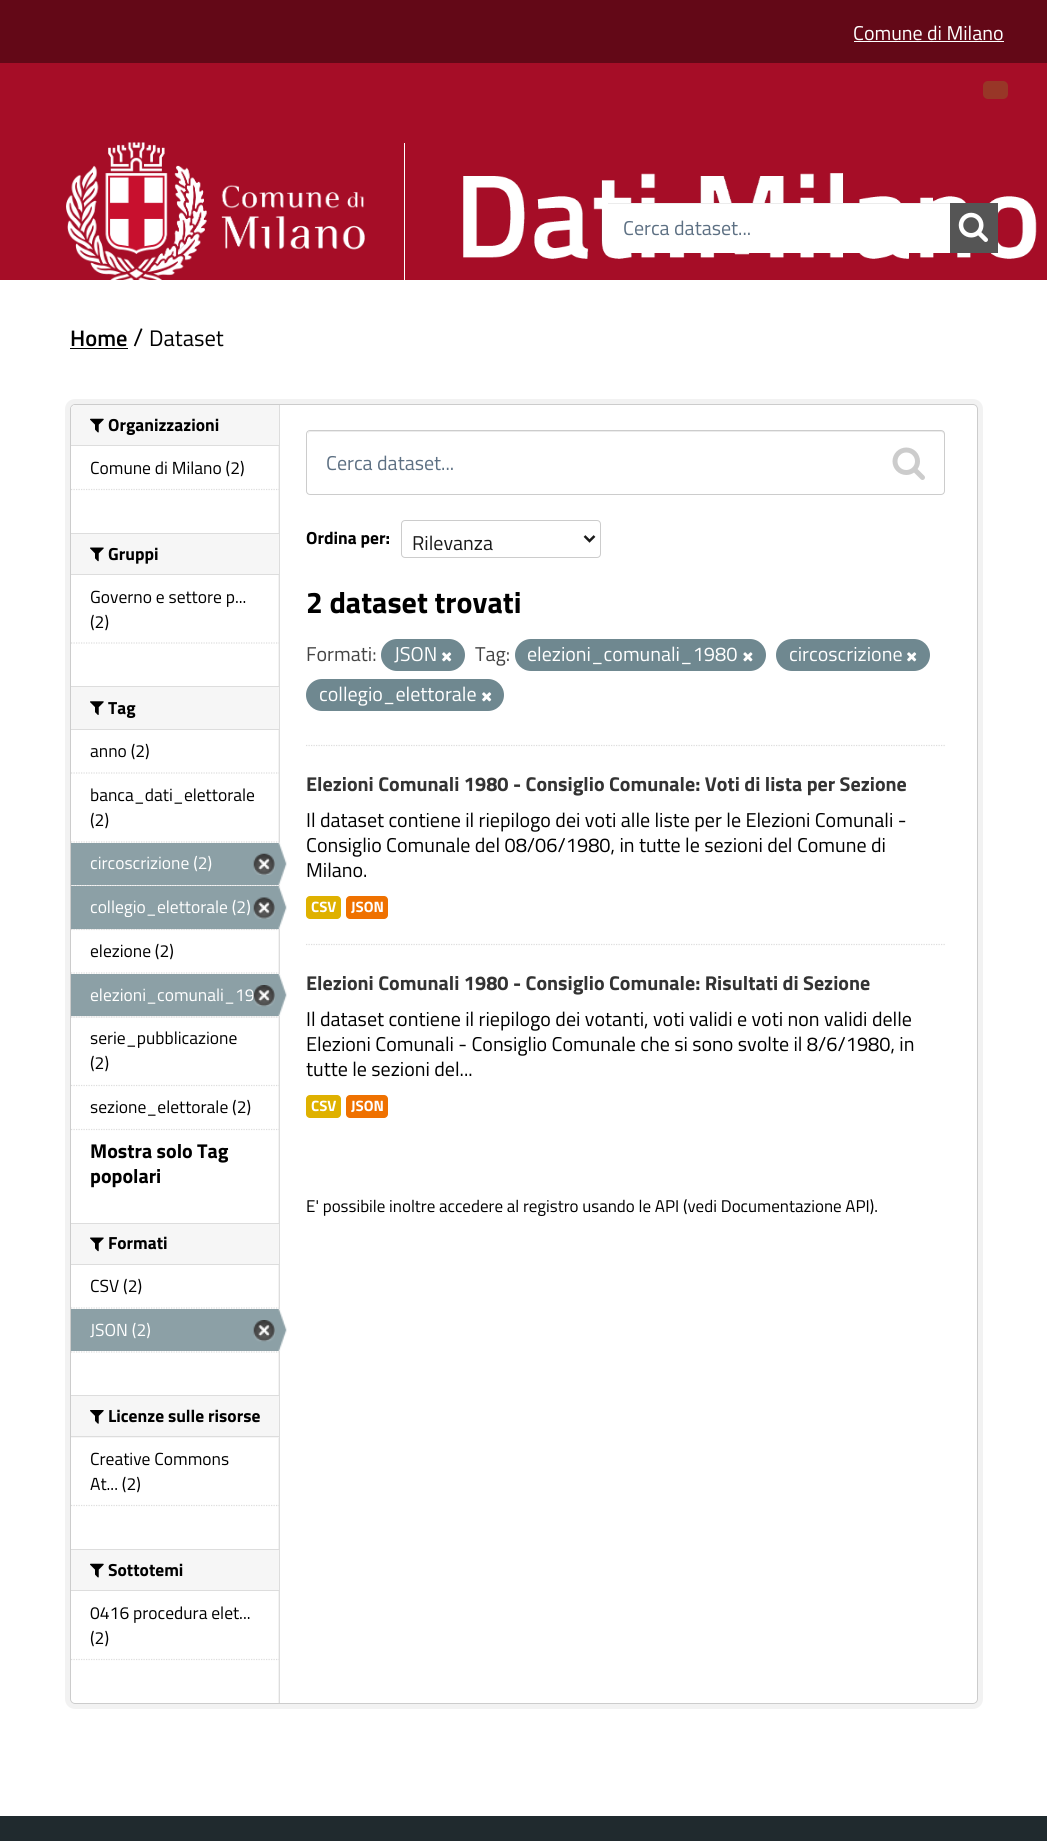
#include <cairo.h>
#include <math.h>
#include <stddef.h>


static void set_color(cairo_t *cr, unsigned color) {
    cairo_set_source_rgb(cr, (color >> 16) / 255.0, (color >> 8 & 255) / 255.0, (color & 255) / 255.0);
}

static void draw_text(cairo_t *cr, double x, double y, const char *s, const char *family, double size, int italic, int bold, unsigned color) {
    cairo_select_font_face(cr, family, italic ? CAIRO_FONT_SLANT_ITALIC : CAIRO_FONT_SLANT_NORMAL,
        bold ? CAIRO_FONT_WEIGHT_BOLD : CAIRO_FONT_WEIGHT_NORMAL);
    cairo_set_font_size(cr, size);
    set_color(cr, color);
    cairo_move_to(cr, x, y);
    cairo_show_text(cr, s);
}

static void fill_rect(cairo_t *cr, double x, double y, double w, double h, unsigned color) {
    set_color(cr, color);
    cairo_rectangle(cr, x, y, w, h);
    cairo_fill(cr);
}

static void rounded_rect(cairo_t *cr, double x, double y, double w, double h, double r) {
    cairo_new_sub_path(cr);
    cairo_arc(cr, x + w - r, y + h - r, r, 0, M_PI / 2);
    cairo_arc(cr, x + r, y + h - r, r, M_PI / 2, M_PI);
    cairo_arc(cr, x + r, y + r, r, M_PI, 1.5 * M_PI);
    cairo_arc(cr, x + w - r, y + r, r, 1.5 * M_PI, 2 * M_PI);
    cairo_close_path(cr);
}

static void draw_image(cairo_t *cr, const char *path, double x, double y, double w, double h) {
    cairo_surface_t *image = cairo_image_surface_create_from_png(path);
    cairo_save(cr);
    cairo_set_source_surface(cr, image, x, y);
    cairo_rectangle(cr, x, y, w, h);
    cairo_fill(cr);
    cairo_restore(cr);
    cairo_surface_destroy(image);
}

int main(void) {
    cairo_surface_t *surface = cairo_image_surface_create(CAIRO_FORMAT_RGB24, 1047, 1841);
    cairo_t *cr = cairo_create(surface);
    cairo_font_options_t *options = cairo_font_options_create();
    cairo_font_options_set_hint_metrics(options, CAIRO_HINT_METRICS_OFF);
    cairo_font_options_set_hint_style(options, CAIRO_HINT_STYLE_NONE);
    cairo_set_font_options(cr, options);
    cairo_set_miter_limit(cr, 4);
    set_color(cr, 0xFFFFFF);
    cairo_paint(cr);
    fill_rect(cr, 0, 0, 1047, 63, 0x630817);
    draw_text(cr, 853, 40, "Comune di Milano", "Titillium Web", 20, 0, 0, 0xFFFFFF);
    fill_rect(cr, 854, 41, 150, 1, 0xFFFFFF);
    fill_rect(cr, 0, 63, 1047, 217, 0xA60D27);
    set_color(cr, 0x983627);
    rounded_rect(cr, 983, 81, 25, 18, 5);
    cairo_fill(cr);
    fill_rect(cr, 404, 143, 1, 137, 0xFFFFFF);
    draw_image(cr, "assets/img1.png", 66, 142, 299, 138);
    draw_image(cr, "assets/img2.png", 463, 173, 574, 86);
    fill_rect(cr, 613, 204, 337, 49, 0xFFFFFF);
    fill_rect(cr, 608, 203, 342, 1, 0xECECEC);
    draw_text(cr, 623, 235, "Cerca dataset...", "Titillium Web", 20, 0, 0, 0x5D7083);
    fill_rect(cr, 950, 203, 48, 50, 0x555555);
    draw_image(cr, "assets/img3.png", 958, 212, 30, 30);
    draw_text(cr, 70, 346, "Home", "Titillium Web SemiBold", 22.5, 0, 0, 0x000000);
    fill_rect(cr, 70, 348, 58, 1, 0x000000);
    draw_text(cr, 133, 346, "/", "Titillium Web", 25, 0, 0, 0x000000);
    draw_text(cr, 149, 346, "Dataset", "Titillium Web", 22.5, 0, 0, 0x000000);
    rounded_rect(cr, 67.5, 401.5, 913, 1305, 7.5);
    set_color(cr, 0xF2F2F2);
    cairo_set_line_width(cr, 5);
    cairo_stroke(cr);
    set_color(cr, 0xFFFFFF);
    rounded_rect(cr, 70, 404, 908, 1300, 5);
    cairo_fill(cr);
    draw_image(cr, "assets/img4.png", 278, 405, 2, 1298);
    rounded_rect(cr, 70.5, 404.5, 907, 1299, 4.5);
    set_color(cr, 0xCCCCCC);
    cairo_set_line_width(cr, 1);
    cairo_stroke(cr);
    set_color(cr, 0xF6F6F6);
    cairo_new_path(cr);
    cairo_move_to(cr, 75, 405);
    cairo_line_to(cr, 279, 405);
    cairo_line_to(cr, 279, 446);
    cairo_line_to(cr, 71, 446);
    cairo_line_to(cr, 71, 409);
    cairo_curve_to(cr, 71, 407, 73, 405, 75, 405);
    cairo_close_path(cr);
    cairo_fill(cr);
    fill_rect(cr, 71, 445, 208, 1, 0xDDDDDD);
    draw_image(cr, "assets/img5.png", 90, 418, 14, 15);
    draw_text(cr, 108, 431, "Organizzazioni", "Titillium Web", 17.5, 0, 1, 0x000000);
    draw_text(cr, 90, 474, "Comune di Milano (2)", "Titillium Web", 17.5, 0, 0, 0x000000);
    cairo_new_path(cr);
    cairo_move_to(cr, 71, 489.5);
    cairo_line_to(cr, 279, 489.5);
    set_color(cr, 0xDDDDDD);
    cairo_set_line_width(cr, 1.2);
    cairo_set_dash(cr, (double[]){1.25, 1.25}, 2, 0);
    cairo_stroke(cr);
    fill_rect(cr, 71, 534, 208, 40, 0xF6F6F6);
    fill_rect(cr, 71, 533, 208, 1, 0xDDDDDD);
    fill_rect(cr, 71, 574, 208, 1, 0xDDDDDD);
    draw_image(cr, "assets/img6.png", 90, 547, 14, 15);
    draw_text(cr, 108, 560, "Gruppi", "Titillium Web", 17.5, 0, 1, 0x000000);
    draw_text(cr, 90, 603, "Governo e settore p...", "Titillium Web", 17.5, 0, 0, 0x000000);
    draw_text(cr, 90, 628, "(2)", "Titillium Web", 17.5, 0, 0, 0x000000);
    cairo_new_path(cr);
    cairo_move_to(cr, 71, 643);
    cairo_line_to(cr, 279, 643);
    set_color(cr, 0xDDDDDD);
    cairo_stroke(cr);
    fill_rect(cr, 71, 687, 208, 42, 0xF6F6F6);
    fill_rect(cr, 71, 686, 208, 1, 0xDDDDDD);
    fill_rect(cr, 71, 729, 208, 1, 0xDDDDDD);
    draw_image(cr, "assets/img7.png", 90, 701, 14, 14);
    draw_text(cr, 108, 714, "Tag", "Titillium Web", 17.5, 0, 1, 0x000000);
    cairo_new_path(cr);
    cairo_move_to(cr, 71, 773);
    cairo_line_to(cr, 279, 773);
    set_color(cr, 0xDDDDDD);
    cairo_stroke(cr);
    draw_text(cr, 90, 757, "anno (2)", "Titillium Web", 17.5, 0, 0, 0x000000);
    cairo_new_path(cr);
    cairo_move_to(cr, 71, 842);
    cairo_line_to(cr, 279, 842);
    set_color(cr, 0xDDDDDD);
    cairo_stroke(cr);
    draw_text(cr, 90, 801, "banca_dati_elettorale", "Titillium Web", 17.5, 0, 0, 0x000000);
    draw_text(cr, 90, 826, "(2)", "Titillium Web", 17.5, 0, 0, 0x000000);
    fill_rect(cr, 72, 885, 207, 1, 0xF6F6F6);
    cairo_new_path(cr);
    cairo_move_to(cr, 71, 885.5);
    cairo_line_to(cr, 279, 885.5);
    set_color(cr, 0xDDDDDD);
    cairo_stroke(cr);
    fill_rect(cr, 71, 843, 208, 42, 0x8CA0A6);
    draw_text(cr, 90, 869, "circoscrizione (2)", "Titillium Web", 17.5, 0, 0, 0xFFFFFF);
    draw_image(cr, "assets/img8.png", 253, 853, 22, 22);
    draw_image(cr, "assets/img9.png", 278, 842, 9, 43);
    fill_rect(cr, 72, 929, 207, 1, 0xF6F6F6);
    cairo_new_path(cr);
    cairo_move_to(cr, 71, 929.5);
    cairo_line_to(cr, 279, 929.5);
    set_color(cr, 0xDDDDDD);
    cairo_stroke(cr);
    fill_rect(cr, 71, 886, 208, 43, 0x8CA0A6);
    draw_text(cr, 90, 913, "collegio_elettorale (2)", "Titillium Web", 17.5, 0, 0, 0xFFFFFF);
    draw_image(cr, "assets/img10.png", 253, 897, 22, 22);
    draw_image(cr, "assets/img11.png", 278, 886, 9, 43);
    cairo_new_path(cr);
    cairo_move_to(cr, 71, 973);
    cairo_line_to(cr, 279, 973);
    set_color(cr, 0xDDDDDD);
    cairo_stroke(cr);
    draw_text(cr, 90, 957, "elezione (2)", "Titillium Web", 17.5, 0, 0, 0x000000);
    fill_rect(cr, 71, 1016, 208, 2, 0xF6F6F6);
    cairo_new_path(cr);
    cairo_move_to(cr, 71, 1017);
    cairo_line_to(cr, 279, 1017);
    set_color(cr, 0xDDDDDD);
    cairo_stroke(cr);
    fill_rect(cr, 71, 974, 208, 42, 0x8CA0A6);
    draw_text(cr, 90, 1001, "elezioni_comunali_19", "Titillium Web", 17.5, 0, 0, 0xFFFFFF);
    draw_image(cr, "assets/img12.png", 253, 985, 22, 22);
    draw_image(cr, "assets/img13.png", 278, 974, 9, 42);
    cairo_new_path(cr);
    cairo_move_to(cr, 71, 1085.5);
    cairo_line_to(cr, 279, 1085.5);
    set_color(cr, 0xDDDDDD);
    cairo_stroke(cr);
    draw_text(cr, 90, 1044, "serie_pubblicazione", "Titillium Web", 17.5, 0, 0, 0x000000);
    draw_text(cr, 90, 1069, "(2)", "Titillium Web", 17.5, 0, 0, 0x000000);
    draw_text(cr, 90, 1113, "sezione_elettorale (2)", "Titillium Web", 17.5, 0, 0, 0x000000);
    cairo_new_path(cr);
    cairo_move_to(cr, 71, 1129.5);
    cairo_line_to(cr, 279, 1129.5);
    set_color(cr, 0xDDDDDD);
    cairo_stroke(cr);
    draw_text(cr, 90, 1158, "Mostra solo Tag", "Titillium Web", 20, 0, 1, 0x000000);
    draw_text(cr, 90, 1183, "popolari", "Titillium Web", 20, 0, 1, 0x000000);
    fill_rect(cr, 71, 1224, 208, 40, 0xF6F6F6);
    fill_rect(cr, 71, 1223, 208, 1, 0xDDDDDD);
    fill_rect(cr, 71, 1264, 208, 1, 0xDDDDDD);
    draw_image(cr, "assets/img6.png", 90, 1237, 14, 15);
    draw_text(cr, 108, 1249, "Formati", "Titillium Web", 17.5, 0, 1, 0x000000);
    cairo_new_path(cr);
    cairo_move_to(cr, 71, 1308);
    cairo_line_to(cr, 279, 1308);
    set_color(cr, 0xDDDDDD);
    cairo_stroke(cr);
    draw_text(cr, 90, 1292, "CSV (2)", "Titillium Web", 17.5, 0, 0, 0x000000);
    fill_rect(cr, 71, 1309, 208, 42, 0x8CA0A6);
    draw_text(cr, 90, 1336, "JSON (2)", "Titillium Web", 17.5, 0, 0, 0xFFFFFF);
    draw_image(cr, "assets/img14.png", 253, 1320, 22, 22);
    draw_image(cr, "assets/img13.png", 278, 1309, 9, 42);
    cairo_new_path(cr);
    cairo_move_to(cr, 71, 1352);
    cairo_line_to(cr, 279, 1352);
    set_color(cr, 0xDDDDDD);
    cairo_stroke(cr);
    fill_rect(cr, 71, 1396, 208, 42, 0xF6F6F6);
    fill_rect(cr, 71, 1395, 208, 1, 0xDDDDDD);
    fill_rect(cr, 71, 1436, 208, 1, 0xDDDDDD);
    draw_image(cr, "assets/img15.png", 90, 1410, 14, 14);
    draw_text(cr, 108, 1422, "Licenze sulle risorse", "Titillium Web", 17.5, 0, 1, 0x000000);
    draw_text(cr, 90, 1465, "Creative Commons", "Titillium Web", 17.5, 0, 0, 0x000000);
    draw_text(cr, 90, 1490, "At... (2)", "Titillium Web", 17.5, 0, 0, 0x000000);
    cairo_new_path(cr);
    cairo_move_to(cr, 71, 1505.5);
    cairo_line_to(cr, 279, 1505.5);
    set_color(cr, 0xDDDDDD);
    cairo_stroke(cr);
    fill_rect(cr, 71, 1550, 208, 40, 0xF6F6F6);
    fill_rect(cr, 71, 1549, 208, 1, 0xDDDDDD);
    fill_rect(cr, 71, 1590, 208, 1, 0xDDDDDD);
    draw_image(cr, "assets/img5.png", 90, 1563, 14, 15);
    draw_text(cr, 108, 1576, "Sottotemi", "Titillium Web", 17.5, 0, 1, 0x000000);
    draw_text(cr, 90, 1619, "0416 procedura elet...", "Titillium Web", 17.5, 0, 0, 0x000000);
    draw_text(cr, 90, 1644, "(2)", "Titillium Web", 17.5, 0, 0, 0x000000);
    cairo_new_path(cr);
    cairo_move_to(cr, 71, 1659.5);
    cairo_line_to(cr, 279, 1659.5);
    set_color(cr, 0xDDDDDD);
    cairo_stroke(cr);
    cairo_new_path(cr);
    cairo_move_to(cr, 306, 745.5);
    cairo_line_to(cr, 945, 745.5);
    cairo_stroke(cr);
    set_color(cr, 0xECECEC);
    cairo_new_path(cr);
    cairo_move_to(cr, 310, 432);
    cairo_line_to(cr, 941, 432);
    cairo_curve_to(cr, 943, 432, 944, 434, 944, 435);
    cairo_line_to(cr, 944, 434);
    cairo_curve_to(cr, 944, 432, 943, 431, 942, 431);
    cairo_line_to(cr, 310, 431);
    cairo_curve_to(cr, 309, 431, 308, 432, 308, 434);
    cairo_line_to(cr, 308, 435);
    cairo_curve_to(cr, 308, 434, 309, 432, 310, 432);
    cairo_close_path(cr);
    cairo_fill(cr);
    rounded_rect(cr, 306.5, 430.5, 638, 64, 3.5);
    set_color(cr, 0xCCCCCC);
    cairo_set_line_width(cr, 1);
    cairo_set_dash(cr, NULL, 0, 0);
    cairo_stroke(cr);
    draw_text(cr, 326, 470, "Cerca dataset...", "Titillium Web", 20, 0, 0, 0x5D7083);
    draw_image(cr, "assets/img16.png", 892, 447, 33, 33);
    draw_text(cr, 306, 544, "Ordina per:", "Titillium Web", 17.5, 0, 1, 0x000000);
    rounded_rect(cr, 401.5, 520.5, 199, 37, 3.5);
    set_color(cr, 0xCCCCCC);
    cairo_stroke(cr);
    cairo_new_path(cr);
    cairo_move_to(cr, 584.5, 536);
    cairo_line_to(cr, 589.5, 541);
    cairo_line_to(cr, 594.5, 536);
    set_color(cr, 0x1A1A1A);
    cairo_set_line_width(cr, 2.5);
    cairo_stroke(cr);
    draw_text(cr, 412, 550, "Rilevanza", "Titillium Web", 20, 0, 0, 0x1A1A1A);
    draw_text(cr, 306, 613, "2 dataset trovati", "Titillium Web", 30, 0, 1, 0x000000);
    draw_text(cr, 306, 661, "Formati:", "Titillium Web", 20, 0, 0, 0x444444);
    set_color(cr, 0x6F8890);
    rounded_rect(cr, 381, 639, 84, 32, 16);
    cairo_fill(cr);
    draw_text(cr, 394, 661, "JSON", "Titillium Web", 20, 0, 0, 0xFFFFFF);
    draw_image(cr, "assets/img17.png", 442, 652, 10, 10);
    draw_text(cr, 475, 661, "Tag:", "Titillium Web", 20, 0, 0, 0x444444);
    set_color(cr, 0x6F8890);
    rounded_rect(cr, 515, 639, 251, 32, 16);
    cairo_fill(cr);
    draw_text(cr, 527, 661, "elezioni_comunali_1980", "Titillium Web", 20, 0, 0, 0xFFFFFF);
    draw_image(cr, "assets/img18.png", 743, 652, 10, 10);
    set_color(cr, 0x6F8890);
    rounded_rect(cr, 776, 639, 154, 32, 16);
    cairo_fill(cr);
    draw_text(cr, 789, 661, "circoscrizione", "Titillium Web", 20, 0, 0, 0xFFFFFF);
    draw_image(cr, "assets/img17.png", 907, 652, 10, 10);
    set_color(cr, 0x6F8890);
    rounded_rect(cr, 306, 679, 198, 32, 16);
    cairo_fill(cr);
    draw_text(cr, 319, 701, "collegio_elettorale", "Titillium Web", 20, 0, 0, 0xFFFFFF);
    draw_image(cr, "assets/img17.png", 482, 692, 10, 10);
    cairo_new_path(cr);
    cairo_move_to(cr, 306, 944.5);
    cairo_line_to(cr, 945, 944.5);
    set_color(cr, 0xDDDDDD);
    cairo_set_line_width(cr, 1.2);
    cairo_set_dash(cr, (double[]){1.25, 1.25}, 2, 0);
    cairo_stroke(cr);
    draw_text(cr, 306, 791, "Elezioni Comunali 1980 - Consiglio Comunale: Voti di lista per Sezione", "Titillium Web", 20, 0, 1, 0x333333);
    draw_text(cr, 306, 827, "Il dataset contiene il riepilogo dei voti alle liste per le Elezioni Comunali -", "Titillium Web", 20, 0, 0, 0x000000);
    draw_text(cr, 306, 852, "Consiglio Comunale del 08/06/1980, in tutte le sezioni del Comune di", "Titillium Web", 20, 0, 0, 0x000000);
    draw_text(cr, 306, 877, "Milano.", "Titillium Web", 20, 0, 0, 0x000000);
    set_color(cr, 0xDFB100);
    rounded_rect(cr, 306, 896, 35, 23, 4);
    cairo_fill(cr);
    draw_text(cr, 311, 912, "CSV", "Titillium Web", 15, 0, 1, 0xFFFFFF);
    set_color(cr, 0xEF7100);
    rounded_rect(cr, 346, 896, 42, 23, 4);
    cairo_fill(cr);
    draw_text(cr, 351, 912, "JSON", "Titillium Web", 15, 0, 1, 0xFFFFFF);
    draw_text(cr, 306, 990, "Elezioni Comunali 1980 - Consiglio Comunale: Risultati di Sezione", "Titillium Web", 20, 0, 1, 0x333333);
    draw_text(cr, 306, 1026, "Il dataset contiene il riepilogo dei votanti, voti validi e voti non validi delle", "Titillium Web", 20, 0, 0, 0x000000);
    draw_text(cr, 306, 1051, "Elezioni Comunali - Consiglio Comunale che si sono svolte il 8/6/1980, in", "Titillium Web", 20, 0, 0, 0x000000);
    draw_text(cr, 306, 1076, "tutte le sezioni del...", "Titillium Web", 20, 0, 0, 0x000000);
    set_color(cr, 0xDFB100);
    rounded_rect(cr, 306, 1095, 35, 23, 4);
    cairo_fill(cr);
    draw_text(cr, 311, 1111, "CSV", "Titillium Web", 15, 0, 1, 0xFFFFFF);
    set_color(cr, 0xEF7100);
    rounded_rect(cr, 346, 1095, 42, 23, 4);
    cairo_fill(cr);
    draw_text(cr, 351, 1111, "JSON", "Titillium Web", 15, 0, 1, 0xFFFFFF);
    draw_text(cr, 306, 1212, "E' possibile inoltre accedere al registro usando le API (vedi Documentazione API).", "Titillium Web", 17, 0, 0, 0x000000);
    fill_rect(cr, 0, 1816, 1047, 25, 0x202A2E);
    cairo_surface_write_to_png(surface, "output.png");
    cairo_font_options_destroy(options);
    cairo_destroy(cr);
    cairo_surface_destroy(surface);
    return 0;
}
